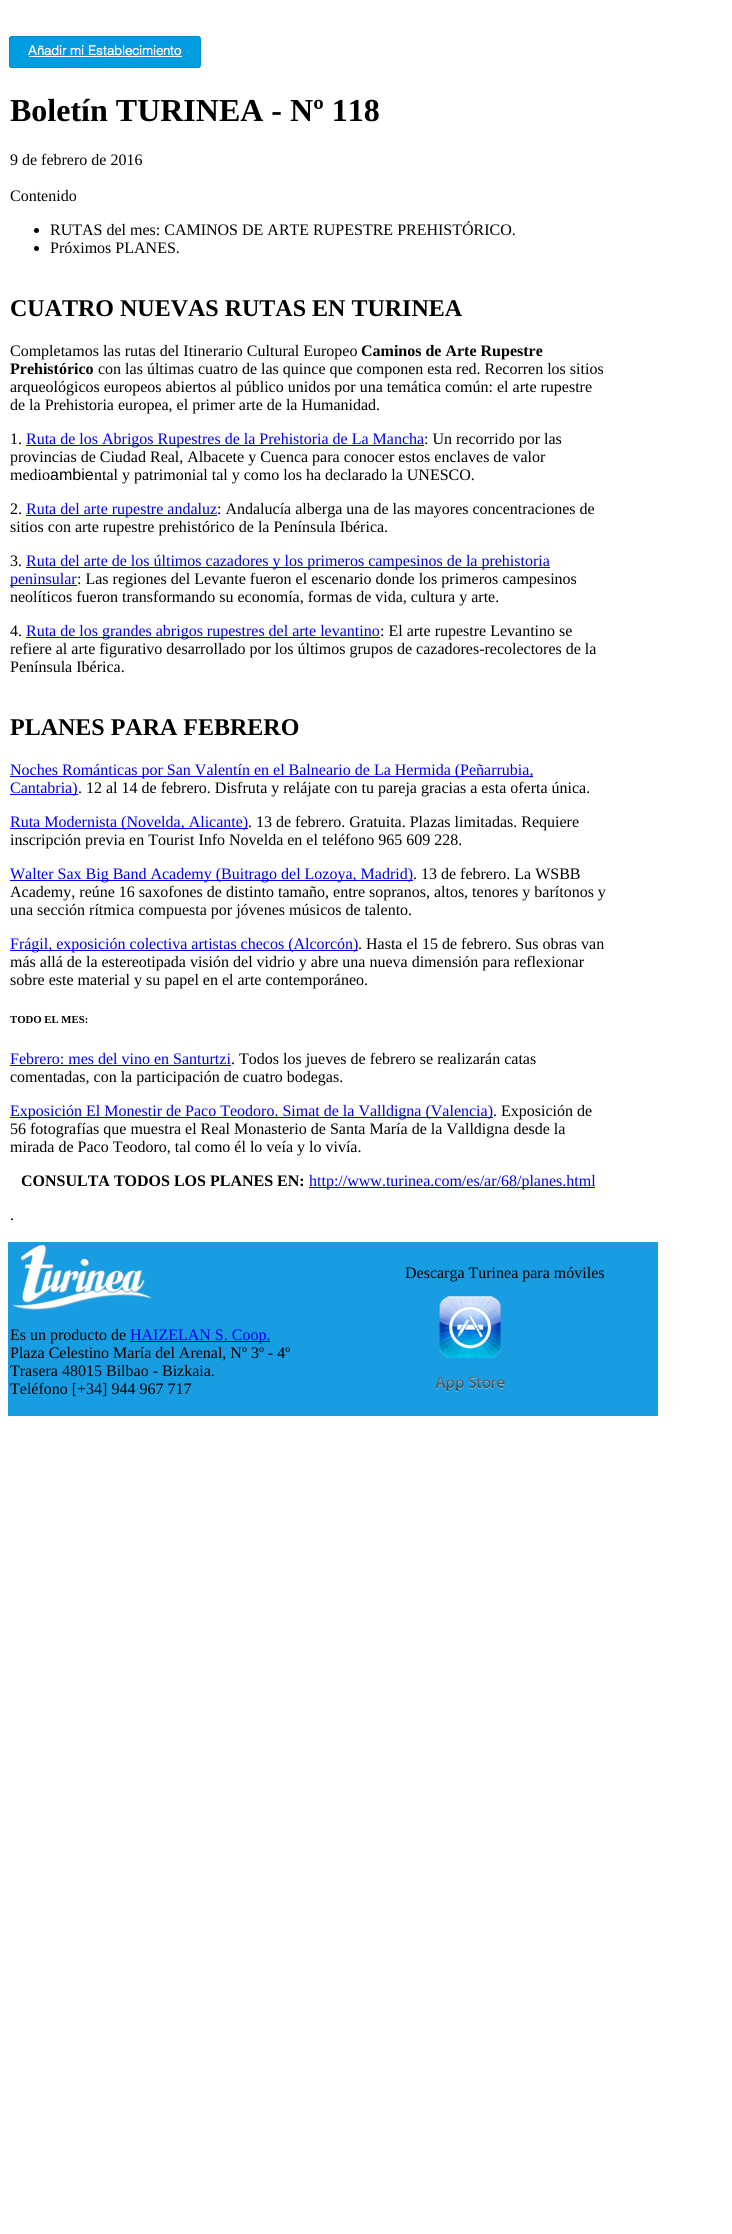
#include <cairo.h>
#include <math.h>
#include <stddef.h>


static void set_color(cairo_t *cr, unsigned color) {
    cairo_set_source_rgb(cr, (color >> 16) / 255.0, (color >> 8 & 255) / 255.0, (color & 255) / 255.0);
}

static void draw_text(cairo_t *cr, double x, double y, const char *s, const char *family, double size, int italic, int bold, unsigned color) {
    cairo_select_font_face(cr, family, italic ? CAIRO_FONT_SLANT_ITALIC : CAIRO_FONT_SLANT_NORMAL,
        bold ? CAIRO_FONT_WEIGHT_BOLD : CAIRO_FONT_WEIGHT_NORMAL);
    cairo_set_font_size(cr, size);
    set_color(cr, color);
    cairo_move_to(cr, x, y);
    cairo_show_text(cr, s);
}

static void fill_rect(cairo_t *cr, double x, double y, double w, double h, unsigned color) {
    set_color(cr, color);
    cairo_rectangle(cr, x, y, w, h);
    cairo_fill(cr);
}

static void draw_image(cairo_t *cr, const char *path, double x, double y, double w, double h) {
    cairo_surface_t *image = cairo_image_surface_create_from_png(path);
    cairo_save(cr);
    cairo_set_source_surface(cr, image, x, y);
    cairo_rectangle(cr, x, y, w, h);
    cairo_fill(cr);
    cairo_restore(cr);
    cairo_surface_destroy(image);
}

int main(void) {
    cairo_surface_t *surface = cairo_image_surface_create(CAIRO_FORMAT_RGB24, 732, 2234);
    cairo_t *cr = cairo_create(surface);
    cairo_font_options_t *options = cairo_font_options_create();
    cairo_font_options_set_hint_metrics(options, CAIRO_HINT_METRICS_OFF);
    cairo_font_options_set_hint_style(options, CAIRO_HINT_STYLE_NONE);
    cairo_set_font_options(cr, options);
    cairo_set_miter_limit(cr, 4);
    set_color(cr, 0xFFFFFF);
    cairo_paint(cr);
    draw_image(cr, "assets/img1.png", 8, 34, 194, 35);
    draw_text(cr, 10, 121, "Boletín TURINEA - Nº 118", "Liberation Serif", 32, 0, 1, 0x000000);
    draw_text(cr, 10, 165, "9 de febrero de 2016", "Liberation Serif", 16, 0, 0, 0x000000);
    draw_text(cr, 10, 201, "Contenido", "Liberation Serif", 16, 0, 0, 0x000000);
    cairo_new_path(cr);
    cairo_arc(cr, 36.5, 230.5, 2.5, 0, 2 * M_PI);
    cairo_fill(cr);
    draw_text(cr, 50, 235, "RUTAS del mes: CAMINOS DE ARTE RUPESTRE PREHISTÓRICO.", "Liberation Serif", 16, 0, 0, 0x000000);
    cairo_new_path(cr);
    cairo_arc(cr, 36.5, 248.5, 2.5, 0, 2 * M_PI);
    cairo_fill(cr);
    draw_text(cr, 50, 253, "Próximos PLANES.", "Liberation Serif", 16, 0, 0, 0x000000);
    draw_text(cr, 10, 316, "CUATRO NUEVAS RUTAS EN TURINEA", "Liberation Serif", 24, 0, 1, 0x000000);
    draw_text(cr, 10, 356, "Completamos las rutas del Itinerario Cultural Europeo", "Liberation Serif", 16, 0, 0, 0x000000);
    draw_text(cr, 361, 356, "Caminos de Arte Rupestre", "Liberation Serif", 16, 0, 1, 0x000000);
    draw_text(cr, 10, 374, "Prehistórico", "Liberation Serif", 16, 0, 1, 0x000000);
    draw_text(cr, 98, 374, "con las últimas cuatro de las quince que componen esta red. Recorren los sitios", "Liberation Serif", 16, 0, 0, 0x000000);
    draw_text(cr, 10, 392, "arqueológicos europeos abiertos al público unidos por una temática común: el arte rupestre", "Liberation Serif", 16, 0, 0, 0x000000);
    draw_text(cr, 10, 410, "de la Prehistoria europea, el primer arte de la Humanidad.", "Liberation Serif", 16, 0, 0, 0x000000);
    draw_text(cr, 10, 444, "1.", "Liberation Serif", 16, 0, 0, 0x000000);
    fill_rect(cr, 26, 445, 398, 1, 0x0000EE);
    draw_text(cr, 26, 444, "Ruta de los Abrigos Rupestres de la Prehistoria de La Mancha", "Liberation Serif", 16, 0, 0, 0x0000EE);
    draw_text(cr, 424, 444, ": Un recorrido por las", "Liberation Serif", 16, 0, 0, 0x000000);
    draw_text(cr, 10, 462, "provincias de Ciudad Real, Albacete y Cuenca para conocer estos enclaves de valor", "Liberation Serif", 16, 0, 0, 0x000000);
    draw_text(cr, 10, 480, "medio", "Liberation Serif", 16, 0, 0, 0x000000);
    draw_text(cr, 50, 480, "ambie", "Liberation Sans", 16, 0, 0, 0x000000);
    draw_text(cr, 94, 480, "ntal y patrimonial tal y como los ha declarado la UNESCO.", "Liberation Serif", 16, 0, 0, 0x000000);
    draw_text(cr, 10, 514, "2.", "Liberation Serif", 16, 0, 0, 0x000000);
    fill_rect(cr, 26, 515, 191, 1, 0x0000EE);
    draw_text(cr, 26, 514, "Ruta del arte rupestre andaluz", "Liberation Serif", 16, 0, 0, 0x0000EE);
    draw_text(cr, 217, 514, ": Andalucía alberga una de las mayores concentraciones de", "Liberation Serif", 16, 0, 0, 0x000000);
    draw_text(cr, 10, 532, "sitios con arte rupestre prehistórico de la Península Ibérica.", "Liberation Serif", 16, 0, 0, 0x000000);
    draw_text(cr, 10, 566, "3.", "Liberation Serif", 16, 0, 0, 0x000000);
    fill_rect(cr, 26, 567, 524, 1, 0x0000EE);
    draw_text(cr, 26, 566, "Ruta del arte de los últimos cazadores y los primeros campesinos de la prehistoria", "Liberation Serif", 16, 0, 0, 0x0000EE);
    fill_rect(cr, 10, 585, 67, 1, 0x0000EE);
    draw_text(cr, 10, 584, "peninsular", "Liberation Serif", 16, 0, 0, 0x0000EE);
    draw_text(cr, 77, 584, ": Las regiones del Levante fueron el escenario donde los primeros campesinos", "Liberation Serif", 16, 0, 0, 0x000000);
    draw_text(cr, 10, 602, "neolíticos fueron transformando su economía, formas de vida, cultura y arte.", "Liberation Serif", 16, 0, 0, 0x000000);
    draw_text(cr, 10, 636, "4.", "Liberation Serif", 16, 0, 0, 0x000000);
    fill_rect(cr, 26, 637, 354, 1, 0x0000EE);
    draw_text(cr, 26, 636, "Ruta de los grandes abrigos rupestres del arte levantino", "Liberation Serif", 16, 0, 0, 0x0000EE);
    draw_text(cr, 380, 636, ": El arte rupestre Levantino se", "Liberation Serif", 16, 0, 0, 0x000000);
    draw_text(cr, 10, 654, "refiere al arte figurativo desarrollado por los últimos grupos de cazadores-recolectores de la", "Liberation Serif", 16, 0, 0, 0x000000);
    draw_text(cr, 10, 672, "Península Ibérica.", "Liberation Serif", 16, 0, 0, 0x000000);
    draw_text(cr, 10, 735, "PLANES PARA FEBRERO", "Liberation Serif", 24, 0, 1, 0x000000);
    fill_rect(cr, 10, 776, 523, 1, 0x0000EE);
    draw_text(cr, 10, 775, "Noches Románticas por San Valentín en el Balneario de La Hermida (Peñarrubia,", "Liberation Serif", 16, 0, 0, 0x0000EE);
    fill_rect(cr, 10, 794, 68, 1, 0x0000EE);
    draw_text(cr, 10, 793, "Cantabria)", "Liberation Serif", 16, 0, 0, 0x0000EE);
    draw_text(cr, 78, 793, ". 12 al 14 de febrero. Disfruta y relájate con tu pareja gracias a esta oferta única.", "Liberation Serif", 16, 0, 0, 0x000000);
    fill_rect(cr, 10, 828, 238, 1, 0x0000EE);
    draw_text(cr, 10, 827, "Ruta Modernista (Novelda, Alicante)", "Liberation Serif", 16, 0, 0, 0x0000EE);
    draw_text(cr, 248, 827, ". 13 de febrero. Gratuita. Plazas limitadas. Requiere", "Liberation Serif", 16, 0, 0, 0x000000);
    draw_text(cr, 10, 845, "inscripción previa en Tourist Info Novelda en el teléfono 965 609 228.", "Liberation Serif", 16, 0, 0, 0x000000);
    fill_rect(cr, 10, 880, 403, 1, 0x0000EE);
    draw_text(cr, 10, 879, "Walter Sax Big Band Academy (Buitrago del Lozoya, Madrid)", "Liberation Serif", 16, 0, 0, 0x0000EE);
    draw_text(cr, 413, 879, ". 13 de febrero. La WSBB", "Liberation Serif", 16, 0, 0, 0x000000);
    draw_text(cr, 10, 897, "Academy, reúne 16 saxofones de distinto tamaño, entre sopranos, altos, tenores y barítonos y", "Liberation Serif", 16, 0, 0, 0x000000);
    draw_text(cr, 10, 915, "una sección rítmica compuesta por jóvenes músicos de talento.", "Liberation Serif", 16, 0, 0, 0x000000);
    fill_rect(cr, 10, 950, 348, 1, 0x0000EE);
    draw_text(cr, 10, 949, "Frágil, exposición colectiva artistas checos (Alcorcón)", "Liberation Serif", 16, 0, 0, 0x0000EE);
    draw_text(cr, 358, 949, ". Hasta el 15 de febrero. Sus obras van", "Liberation Serif", 16, 0, 0, 0x000000);
    draw_text(cr, 10, 967, "más allá de la estereotipada visión del vidrio y abre una nueva dimensión para reflexionar", "Liberation Serif", 16, 0, 0, 0x000000);
    draw_text(cr, 10, 985, "sobre este material y su papel en el arte contemporáneo.", "Liberation Serif", 16, 0, 0, 0x000000);
    draw_text(cr, 10, 1023, "TODO EL MES:", "Liberation Serif", 10.75, 0, 1, 0x000000);
    draw_text(cr, 10, 1064, "Febrero: mes del vino en Santurtzi", "Liberation Serif", 16, 0, 0, 0x0000EE);
    fill_rect(cr, 10, 1065, 221, 1, 0x0000EE);
    draw_text(cr, 231, 1064, ". Todos los jueves de febrero se realizarán catas", "Liberation Serif", 16, 0, 0, 0x000000);
    draw_text(cr, 10, 1082, "comentadas, con la participación de cuatro bodegas.", "Liberation Serif", 16, 0, 0, 0x000000);
    fill_rect(cr, 10, 1117, 483, 1, 0x0000EE);
    draw_text(cr, 10, 1116, "Exposición El Monestir de Paco Teodoro. Simat de la Valldigna (Valencia)", "Liberation Serif", 16, 0, 0, 0x0000EE);
    draw_text(cr, 493, 1116, ". Exposición de", "Liberation Serif", 16, 0, 0, 0x000000);
    draw_text(cr, 10, 1134, "56 fotografías que muestra el Real Monasterio de Santa María de la Valldigna desde la", "Liberation Serif", 16, 0, 0, 0x000000);
    draw_text(cr, 10, 1152, "mirada de Paco Teodoro, tal como él lo veía y lo vivía.", "Liberation Serif", 16, 0, 0, 0x000000);
    draw_text(cr, 21, 1186, "CONSULTA TODOS LOS PLANES EN:", "Liberation Serif", 16, 0, 1, 0x000000);
    fill_rect(cr, 309, 1187, 286, 1, 0x0000EE);
    draw_text(cr, 309, 1186, "http://www.turinea.com/es/ar/68/planes.html", "Liberation Serif", 16, 0, 0, 0x0000EE);
    draw_text(cr, 10, 1220, ".", "Liberation Serif", 16, 0, 0, 0x000000);
    fill_rect(cr, 8, 1242, 650, 174, 0x199DE2);
    draw_text(cr, 405, 1278, "Descarga Turinea para móviles", "Liberation Serif", 16, 0, 0, 0x000000);
    draw_image(cr, "assets/img2.png", 435, 1296, 70, 96);
    draw_image(cr, "assets/img3.png", 12, 1245, 139, 65);
    draw_text(cr, 10, 1340, "Es un producto de", "Liberation Serif", 16, 0, 0, 0x000000);
    fill_rect(cr, 130, 1341, 140, 1, 0x0000EE);
    draw_text(cr, 130, 1340, "HAIZELAN S. Coop.", "Liberation Serif", 16, 0, 0, 0x0000EE);
    draw_text(cr, 10, 1358, "Plaza Celestino María del Arenal, Nº 3º - 4º", "Liberation Serif", 16, 0, 0, 0x000000);
    draw_text(cr, 10, 1376, "Trasera 48015 Bilbao - Bizkaia.", "Liberation Serif", 16, 0, 0, 0x000000);
    draw_text(cr, 10, 1394, "Teléfono [+34] 944 967 717", "Liberation Serif", 16, 0, 0, 0x000000);
    cairo_surface_write_to_png(surface, "output.png");
    cairo_font_options_destroy(options);
    cairo_destroy(cr);
    cairo_surface_destroy(surface);
    return 0;
}
